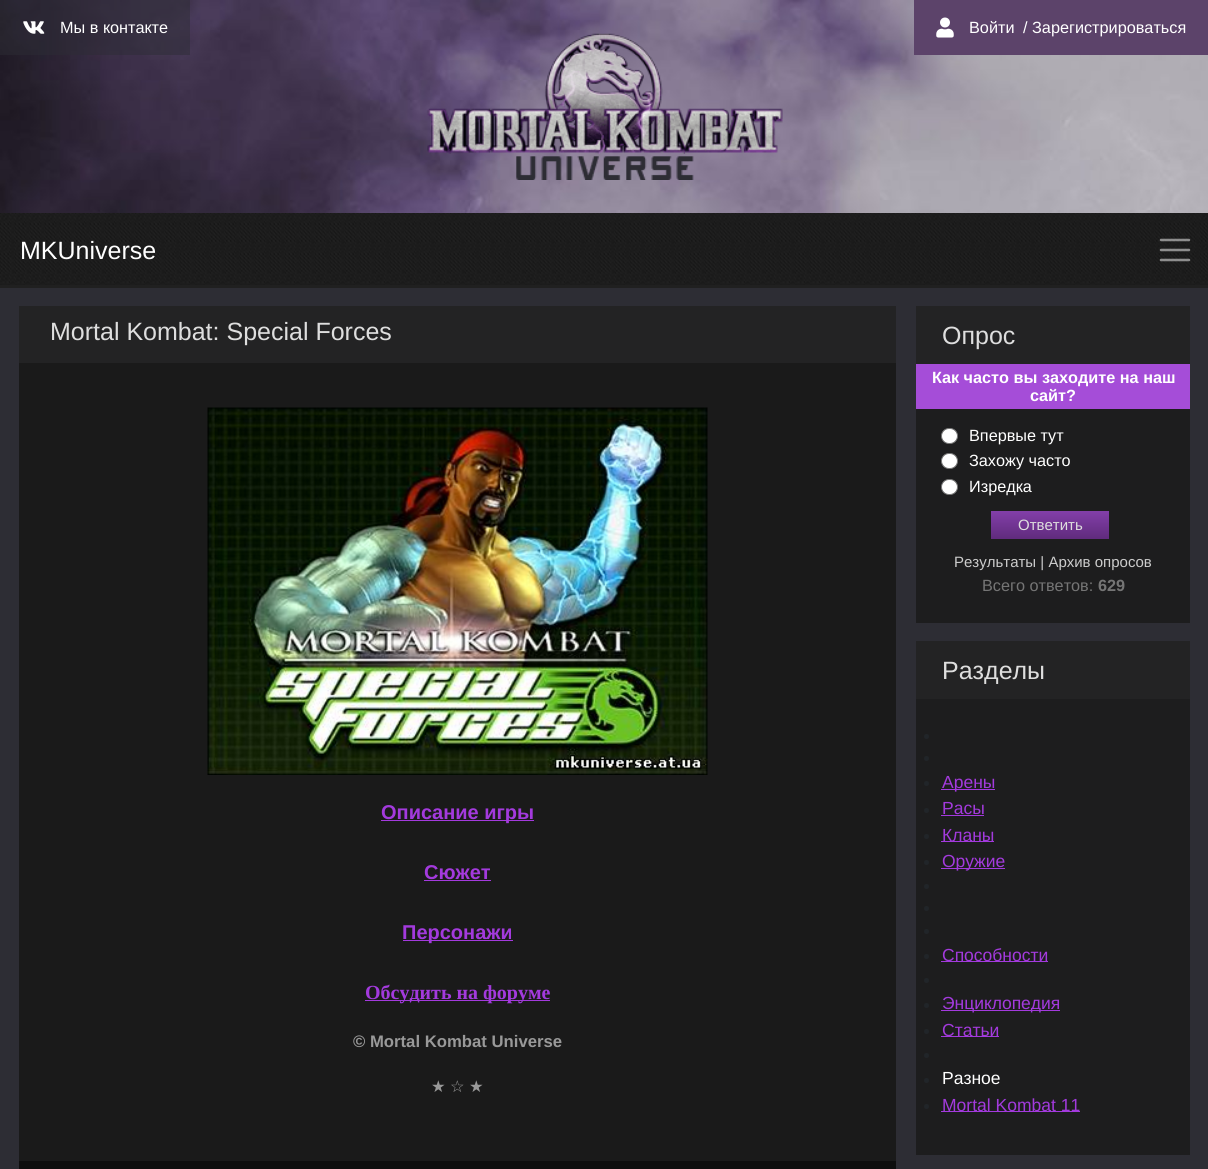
#include <cairo.h>
#include <math.h>
#include <stddef.h>


static void set_color(cairo_t *cr, unsigned color) {
    cairo_set_source_rgb(cr, (color >> 16) / 255.0, (color >> 8 & 255) / 255.0, (color & 255) / 255.0);
}

static void draw_text(cairo_t *cr, double x, double y, const char *s, const char *family, double size, int italic, int bold, unsigned color) {
    cairo_select_font_face(cr, family, italic ? CAIRO_FONT_SLANT_ITALIC : CAIRO_FONT_SLANT_NORMAL,
        bold ? CAIRO_FONT_WEIGHT_BOLD : CAIRO_FONT_WEIGHT_NORMAL);
    cairo_set_font_size(cr, size);
    set_color(cr, color);
    cairo_move_to(cr, x, y);
    cairo_show_text(cr, s);
}

static void fill_rect(cairo_t *cr, double x, double y, double w, double h, unsigned color) {
    set_color(cr, color);
    cairo_rectangle(cr, x, y, w, h);
    cairo_fill(cr);
}

static void rounded_rect(cairo_t *cr, double x, double y, double w, double h, double r) {
    cairo_new_sub_path(cr);
    cairo_arc(cr, x + w - r, y + h - r, r, 0, M_PI / 2);
    cairo_arc(cr, x + r, y + h - r, r, M_PI / 2, M_PI);
    cairo_arc(cr, x + r, y + r, r, M_PI, 1.5 * M_PI);
    cairo_arc(cr, x + w - r, y + r, r, 1.5 * M_PI, 2 * M_PI);
    cairo_close_path(cr);
}

static void draw_image(cairo_t *cr, const char *path, double x, double y, double w, double h) {
    cairo_surface_t *image = cairo_image_surface_create_from_png(path);
    cairo_save(cr);
    cairo_set_source_surface(cr, image, x, y);
    cairo_rectangle(cr, x, y, w, h);
    cairo_fill(cr);
    cairo_restore(cr);
    cairo_surface_destroy(image);
}

int main(void) {
    cairo_surface_t *surface = cairo_image_surface_create(CAIRO_FORMAT_RGB24, 1208, 1169);
    cairo_t *cr = cairo_create(surface);
    cairo_font_options_t *options = cairo_font_options_create();
    cairo_font_options_set_hint_metrics(options, CAIRO_HINT_METRICS_OFF);
    cairo_font_options_set_hint_style(options, CAIRO_HINT_STYLE_NONE);
    cairo_set_font_options(cr, options);
    cairo_set_miter_limit(cr, 4);
    cairo_pattern_t *gradient;
    set_color(cr, 0xFFFFFF);
    cairo_paint(cr);
    draw_image(cr, "assets/img1.png", 0, 0, 1208, 213);
    cairo_set_source_rgba(cr, 0.176, 0.176, 0.204, 0.48);
    cairo_rectangle(cr, 0, 0, 190, 55);
    cairo_fill(cr);
    draw_image(cr, "assets/img2.png", 23, 21, 22, 13);
    draw_text(cr, 60, 33, "Мы в контакте", "Liberation Sans", 16.25, 0, 0, 0xFFFFFF);
    fill_rect(cr, 914, 0, 294, 55, 0x5C436A);
    draw_image(cr, "assets/img3.png", 936, 17, 18, 21);
    draw_text(cr, 969, 33, "Войти", "Liberation Sans", 16.25, 0, 0, 0xFFFFFF);
    draw_text(cr, 1023, 33, "/ Зарегистрироваться", "Liberation Sans", 16.25, 0, 0, 0xFFFFFF);
    draw_image(cr, "assets/img4.png", 427, 33, 356, 147);
    fill_rect(cr, 0, 285, 1208, 3, 0x202020);
    draw_image(cr, "assets/img5.png", 0, 213, 1208, 72);
    draw_text(cr, 20, 259, "MKUniverse", "Liberation Sans", 25, 0, 0, 0xFFFFFF);
    cairo_new_path(cr);
    cairo_move_to(cr, 1161, 240);
    cairo_line_to(cr, 1189, 240);
    cairo_move_to(cr, 1161, 250);
    cairo_line_to(cr, 1189, 250);
    cairo_move_to(cr, 1161, 260);
    cairo_line_to(cr, 1189, 260);
    cairo_set_source_rgba(cr, 1, 1, 1, 0.5);
    cairo_set_line_width(cr, 2.5);
    cairo_set_line_cap(cr, CAIRO_LINE_CAP_ROUND);
    cairo_stroke(cr);
    fill_rect(cr, 0, 288, 1208, 881, 0x2D2D34);
    fill_rect(cr, 19, 363, 877, 798, 0x1A1A1A);
    fill_rect(cr, 19, 306, 877, 57, 0x232324);
    draw_text(cr, 50, 340, "Mortal Kombat: Special Forces", "Liberation Sans", 25, 0, 0, 0xDEDEDE);
    draw_image(cr, "assets/img6.png", 207, 407, 501, 368);
    fill_rect(cr, 381, 820, 153, 1, 0xA33ADD);
    draw_text(cr, 381, 819, "Описание игры", "Liberation Sans", 20, 0, 1, 0xA33ADD);
    draw_text(cr, 424, 879, "Сюжет", "Liberation Sans", 20, 0, 1, 0xA33ADD);
    fill_rect(cr, 424, 880, 67, 1, 0xA33ADD);
    fill_rect(cr, 403, 940, 110, 1, 0xA33ADD);
    draw_text(cr, 402, 939, "Персонажи", "Liberation Sans", 20, 0, 1, 0xA33ADD);
    fill_rect(cr, 365, 1000, 185, 1, 0xA33ADD);
    draw_text(cr, 365, 999, "Обсудить на форуме", "Liberation Serif", 20, 0, 1, 0xA33ADD);
    draw_text(cr, 353, 1047, "© Mortal Kombat Universe", "Liberation Sans", 16.7, 0, 1, 0x999999);
    draw_text(cr, 431, 1092, "★", "DejaVu Sans", 16.25, 0, 0, 0x999999);
    draw_text(cr, 450, 1092, "☆", "DejaVu Sans", 16.25, 0, 0, 0x999999);
    draw_text(cr, 469, 1092, "★", "DejaVu Sans", 16.25, 0, 0, 0x999999);
    fill_rect(cr, 19, 1161, 877, 8, 0x0E0E0E);
    fill_rect(cr, 916, 306, 274, 58, 0x232324);
    draw_text(cr, 942, 344, "Опрос", "Liberation Sans", 25, 0, 0, 0xDEDEDE);
    fill_rect(cr, 916, 409, 274, 214, 0x1D1D1E);
    fill_rect(cr, 916, 364, 274, 45, 0xA54DD8);
    draw_text(cr, 932, 383, "Как часто вы заходите на наш", "Liberation Sans", 16.25, 0, 1, 0xFFFFFF);
    draw_text(cr, 1030, 401, "сайт?", "Liberation Sans", 16.25, 0, 1, 0xFFFFFF);
    rounded_rect(cr, 941.5, 428.5, 16, 15, 7.5);
    cairo_fill_preserve(cr);
    set_color(cr, 0x767676);
    cairo_set_line_width(cr, 1);
    cairo_set_line_cap(cr, CAIRO_LINE_CAP_BUTT);
    cairo_stroke(cr);
    draw_text(cr, 969, 441, "Впервые тут", "Liberation Sans", 16.25, 0, 0, 0xFFFFFF);
    rounded_rect(cr, 941.5, 453.5, 16, 15, 7.5);
    cairo_fill_preserve(cr);
    set_color(cr, 0x767676);
    cairo_stroke(cr);
    draw_text(cr, 969, 466, "Захожу часто", "Liberation Sans", 16.25, 0, 0, 0xFFFFFF);
    rounded_rect(cr, 941.5, 479.5, 16, 15, 7.5);
    cairo_fill_preserve(cr);
    set_color(cr, 0x767676);
    cairo_stroke(cr);
    draw_text(cr, 969, 492, "Изредка", "Liberation Sans", 16.25, 0, 0, 0xFFFFFF);
    gradient = cairo_pattern_create_linear(1050, 511, 1050, 539);
    cairo_pattern_add_color_stop_rgba(gradient, 0, 0.514, 0.247, 0.663, 1);
    cairo_pattern_add_color_stop_rgba(gradient, 1, 0.376, 0.169, 0.49, 1);
    cairo_set_source(cr, gradient);
    cairo_pattern_destroy(gradient);
    cairo_rectangle(cr, 991, 511, 118, 28);
    cairo_fill(cr);
    draw_text(cr, 1018, 530, "Ответить", "Liberation Sans", 15, 0, 0, 0xDEDEDE);
    draw_text(cr, 954, 567, "Результаты | Архив опросов", "Liberation Sans", 15, 0, 0, 0xCCCCCC);
    draw_text(cr, 982, 591, "Всего ответов:", "Liberation Sans", 16.25, 0, 0, 0x757575);
    draw_text(cr, 1098, 591, "629", "Liberation Sans", 16.25, 0, 1, 0x757575);
    fill_rect(cr, 916, 641, 274, 58, 0x232324);
    draw_text(cr, 942, 679, "Разделы", "Liberation Sans", 25, 0, 0, 0xDEDEDE);
    fill_rect(cr, 916, 699, 274, 456, 0x1D1D1E);
    set_color(cr, 0x212529);
    cairo_new_path(cr);
    cairo_arc(cr, 926.5, 736.5, 2.5, 0, 2 * M_PI);
    cairo_fill(cr);
    cairo_arc(cr, 926.5, 758.5, 2.5, 0, 2 * M_PI);
    cairo_fill(cr);
    cairo_arc(cr, 926.5, 783.5, 2.5, 0, 2 * M_PI);
    cairo_fill(cr);
    fill_rect(cr, 941, 789, 54, 1, 0xA33ADD);
    draw_text(cr, 942, 788, "Арены", "Liberation Sans", 17.5, 0, 0, 0xA33ADD);
    set_color(cr, 0x212529);
    cairo_new_path(cr);
    cairo_arc(cr, 926.5, 810.5, 2.5, 0, 2 * M_PI);
    cairo_fill(cr);
    draw_text(cr, 942, 814, "Расы", "Liberation Sans", 17.5, 0, 0, 0xA33ADD);
    fill_rect(cr, 941, 815, 43, 1, 0xA33ADD);
    set_color(cr, 0x212529);
    cairo_new_path(cr);
    cairo_arc(cr, 926.5, 836.5, 2.5, 0, 2 * M_PI);
    cairo_fill(cr);
    fill_rect(cr, 941, 841, 53, 1, 0xA33ADD);
    draw_text(cr, 942, 841, "Кланы", "Liberation Sans", 17.5, 0, 0, 0xA33ADD);
    set_color(cr, 0x212529);
    cairo_new_path(cr);
    cairo_arc(cr, 926.5, 862.5, 2.5, 0, 2 * M_PI);
    cairo_fill(cr);
    fill_rect(cr, 941, 868, 64, 1, 0xA33ADD);
    draw_text(cr, 942, 867, "Оружие", "Liberation Sans", 17.5, 0, 0, 0xA33ADD);
    set_color(cr, 0x212529);
    cairo_new_path(cr);
    cairo_arc(cr, 926.5, 886.5, 2.5, 0, 2 * M_PI);
    cairo_fill(cr);
    cairo_arc(cr, 926.5, 908.5, 2.5, 0, 2 * M_PI);
    cairo_fill(cr);
    cairo_arc(cr, 926.5, 931.5, 2.5, 0, 2 * M_PI);
    cairo_fill(cr);
    cairo_arc(cr, 926.5, 956.5, 2.5, 0, 2 * M_PI);
    cairo_fill(cr);
    fill_rect(cr, 941, 961, 107, 1, 0xA33ADD);
    draw_text(cr, 942, 961, "Способности", "Liberation Sans", 17.5, 0, 0, 0xA33ADD);
    set_color(cr, 0x212529);
    cairo_new_path(cr);
    cairo_arc(cr, 926.5, 980.5, 2.5, 0, 2 * M_PI);
    cairo_fill(cr);
    cairo_arc(cr, 926.5, 1005.5, 2.5, 0, 2 * M_PI);
    cairo_fill(cr);
    fill_rect(cr, 941, 1010, 119, 1, 0xA33ADD);
    draw_text(cr, 942, 1009, "Энциклопедия", "Liberation Sans", 17.5, 0, 0, 0xA33ADD);
    set_color(cr, 0x212529);
    cairo_new_path(cr);
    cairo_arc(cr, 926.5, 1031.5, 2.5, 0, 2 * M_PI);
    cairo_fill(cr);
    fill_rect(cr, 941, 1036, 58, 1, 0xA33ADD);
    draw_text(cr, 942, 1036, "Статьи", "Liberation Sans", 17.5, 0, 0, 0xA33ADD);
    set_color(cr, 0x212529);
    cairo_new_path(cr);
    cairo_arc(cr, 926.5, 1055.5, 2.5, 0, 2 * M_PI);
    cairo_fill(cr);
    cairo_arc(cr, 926.5, 1080.5, 2.5, 0, 2 * M_PI);
    cairo_fill(cr);
    draw_text(cr, 942, 1084, "Разное", "Liberation Sans", 17.5, 0, 0, 0xFFFFFF);
    set_color(cr, 0x212529);
    cairo_new_path(cr);
    cairo_arc(cr, 926.5, 1106.5, 2.5, 0, 2 * M_PI);
    cairo_fill(cr);
    fill_rect(cr, 941, 1111, 139, 1, 0xA33ADD);
    draw_text(cr, 942, 1111, "Mortal Kombat 11", "Liberation Sans", 17.5, 0, 0, 0xA33ADD);
    cairo_surface_write_to_png(surface, "output.png");
    cairo_font_options_destroy(options);
    cairo_destroy(cr);
    cairo_surface_destroy(surface);
    return 0;
}
